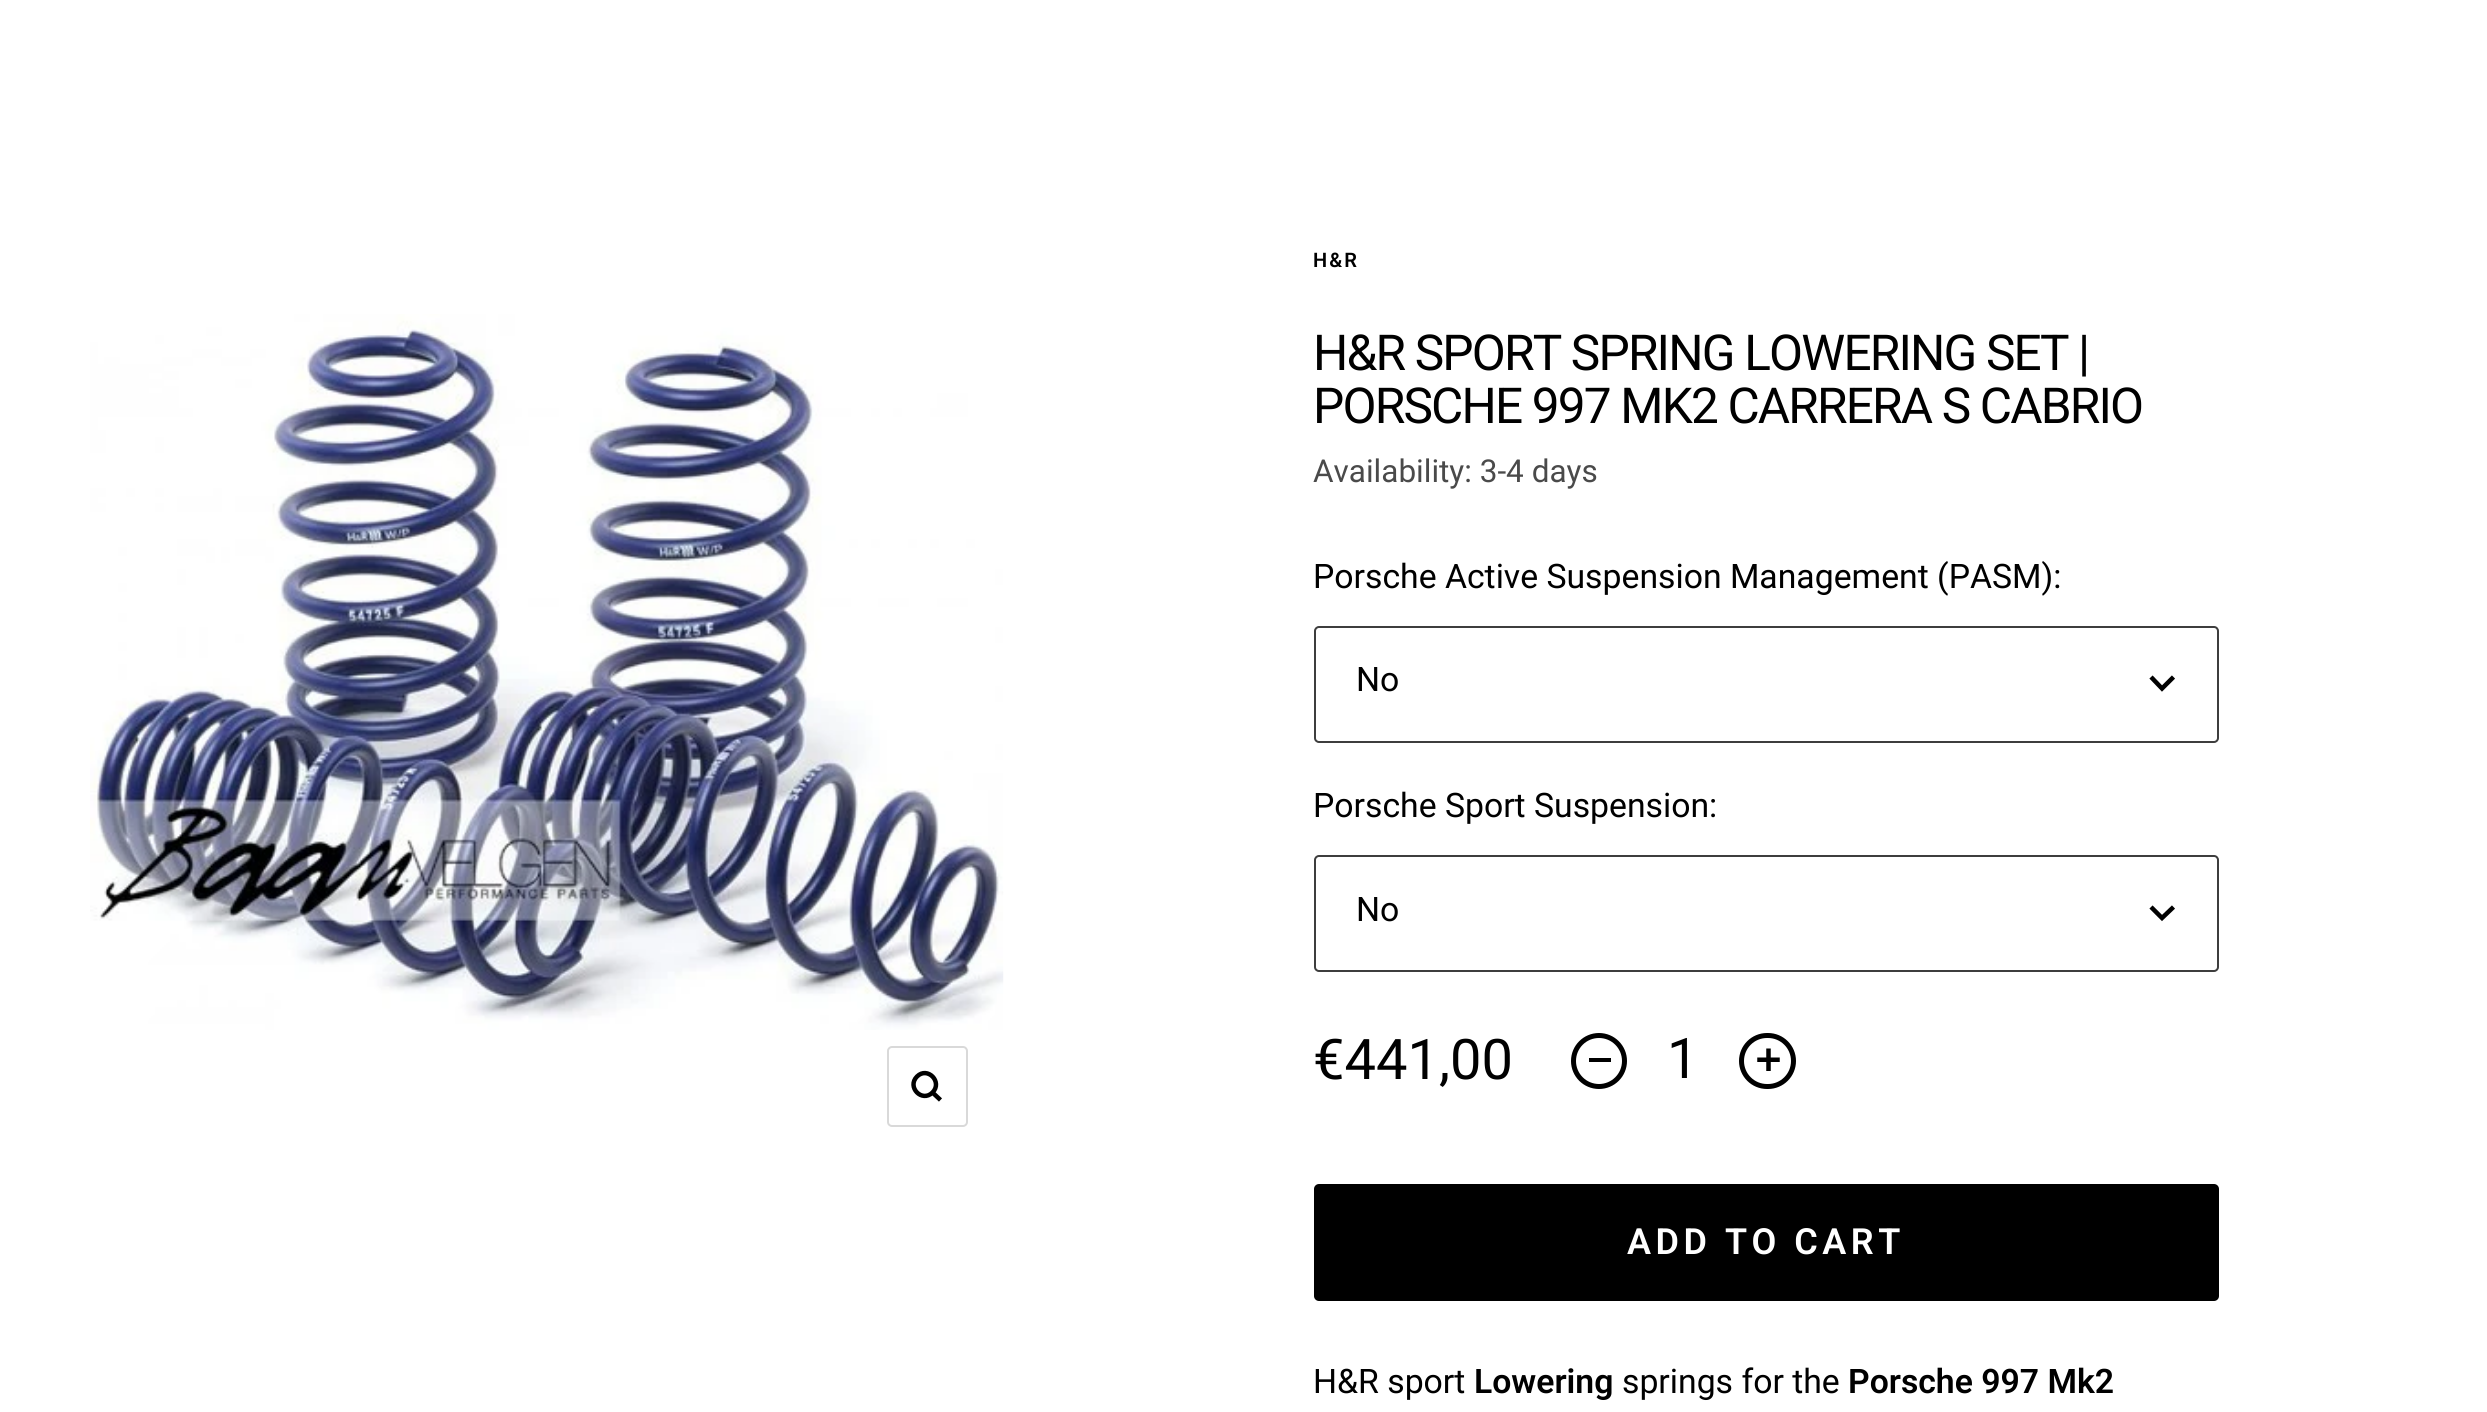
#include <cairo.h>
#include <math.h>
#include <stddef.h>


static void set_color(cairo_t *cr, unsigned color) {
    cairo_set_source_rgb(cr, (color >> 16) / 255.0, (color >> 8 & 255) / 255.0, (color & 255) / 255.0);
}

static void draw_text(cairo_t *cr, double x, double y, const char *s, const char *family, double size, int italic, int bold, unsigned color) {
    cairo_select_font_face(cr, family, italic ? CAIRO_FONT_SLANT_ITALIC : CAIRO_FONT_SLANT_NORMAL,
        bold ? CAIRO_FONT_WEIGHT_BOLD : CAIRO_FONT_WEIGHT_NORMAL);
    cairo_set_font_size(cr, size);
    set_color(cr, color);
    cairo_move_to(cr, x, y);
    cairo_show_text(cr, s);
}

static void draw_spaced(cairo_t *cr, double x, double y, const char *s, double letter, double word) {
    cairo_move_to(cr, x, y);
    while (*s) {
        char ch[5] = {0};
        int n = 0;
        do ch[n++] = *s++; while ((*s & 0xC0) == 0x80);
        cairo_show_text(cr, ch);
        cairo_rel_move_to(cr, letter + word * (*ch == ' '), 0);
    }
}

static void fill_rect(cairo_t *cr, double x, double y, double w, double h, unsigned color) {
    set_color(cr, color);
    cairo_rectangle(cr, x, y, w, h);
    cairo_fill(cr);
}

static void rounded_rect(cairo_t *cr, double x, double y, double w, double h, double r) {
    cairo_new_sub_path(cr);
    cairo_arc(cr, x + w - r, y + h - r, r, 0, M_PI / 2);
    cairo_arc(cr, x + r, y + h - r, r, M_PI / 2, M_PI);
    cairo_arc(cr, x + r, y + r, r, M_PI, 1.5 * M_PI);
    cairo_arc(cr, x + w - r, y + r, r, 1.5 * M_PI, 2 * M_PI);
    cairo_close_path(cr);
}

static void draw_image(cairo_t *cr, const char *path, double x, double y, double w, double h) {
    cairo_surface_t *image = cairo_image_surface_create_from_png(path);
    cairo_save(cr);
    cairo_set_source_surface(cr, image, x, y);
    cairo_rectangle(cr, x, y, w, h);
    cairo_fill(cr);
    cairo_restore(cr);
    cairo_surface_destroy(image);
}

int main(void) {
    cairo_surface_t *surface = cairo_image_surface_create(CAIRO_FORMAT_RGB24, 2487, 1412);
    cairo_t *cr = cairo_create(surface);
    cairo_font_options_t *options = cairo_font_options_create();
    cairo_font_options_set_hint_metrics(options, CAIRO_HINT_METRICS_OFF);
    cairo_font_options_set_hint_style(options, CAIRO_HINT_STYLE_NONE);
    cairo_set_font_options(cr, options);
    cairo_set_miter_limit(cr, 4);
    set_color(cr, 0xFFFFFF);
    cairo_paint(cr);
    draw_image(cr, "assets/img1.png", 90, 314, 914, 716);
    rounded_rect(cr, 888, 1047, 79, 79, 4);
    set_color(cr, 0xD9D9D9);
    cairo_stroke(cr);
    cairo_new_path(cr);
    cairo_move_to(cr, 932.5, 1092.5);
    cairo_curve_to(cr, 943, 1082, 927.5, 1066, 917, 1076.5);
    cairo_curve_to(cr, 906.5, 1087, 922, 1103, 932.5, 1092.5);
    cairo_close_path(cr);
    cairo_move_to(cr, 932.5, 1092.5);
    cairo_line_to(cr, 940.5, 1100);
    set_color(cr, 0x000000);
    cairo_set_line_width(cr, 4.5);
    cairo_stroke(cr);
    cairo_select_font_face(cr, "Roboto SemiBold", CAIRO_FONT_SLANT_NORMAL, CAIRO_FONT_WEIGHT_NORMAL);
    cairo_set_font_size(cr, 20);
    draw_spaced(cr, 1313, 267, "H&R", 2, 0);
    cairo_select_font_face(cr, "Roboto", CAIRO_FONT_SLANT_NORMAL, CAIRO_FONT_WEIGHT_NORMAL);
    cairo_set_font_size(cr, 49.5);
    draw_spaced(cr, 1313, 370, "H&R SPORT SPRING LOWERING SET |", -1.8, 0);
    draw_spaced(cr, 1313, 423, "PORSCHE 997 MK2 CARRERA S CABRIO", -1.8, 0);
    draw_text(cr, 1313, 482, "Availability: 3-4 days", "Roboto", 31.5, 0, 0, 0x4A4A4A);
    draw_text(cr, 1313, 588, "Porsche Active Suspension Management (PASM):", "Roboto", 33.75, 0, 0, 0x000000);
    rounded_rect(cr, 1315, 627, 903, 115, 4);
    set_color(cr, 0x3E3E3E);
    cairo_set_line_width(cr, 2);
    cairo_stroke(cr);
    draw_text(cr, 1356, 691, "No", "Roboto", 33.75, 0, 0, 0x000000);
    cairo_new_path(cr);
    cairo_move_to(cr, 2151, 677);
    cairo_line_to(cr, 2162, 688.5);
    cairo_line_to(cr, 2173.5, 677);
    cairo_set_line_width(cr, 4.5);
    cairo_stroke(cr);
    draw_text(cr, 1313, 817, "Porsche Sport Suspension:", "Roboto", 33.75, 0, 0, 0x000000);
    rounded_rect(cr, 1315, 856, 903, 115, 4);
    set_color(cr, 0x3E3E3E);
    cairo_set_line_width(cr, 2);
    cairo_stroke(cr);
    draw_text(cr, 1356, 921, "No", "Roboto", 33.75, 0, 0, 0x000000);
    cairo_new_path(cr);
    cairo_move_to(cr, 2151, 907);
    cairo_line_to(cr, 2162, 918);
    cairo_line_to(cr, 2173.5, 907);
    cairo_set_line_width(cr, 4.5);
    cairo_stroke(cr);
    draw_text(cr, 1313, 1079, "€441,00", "Roboto", 56, 0, 0, 0x000000);
    cairo_new_path(cr);
    cairo_arc(cr, 1599, 1061, 25.5, 0, 2 * M_PI);
    cairo_set_line_width(cr, 5);
    cairo_stroke(cr);
    fill_rect(cr, 1589, 1058, 22, 4, 0x000000);
    draw_text(cr, 1667, 1078, "1", "Roboto", 56, 0, 0, 0x000000);
    rounded_rect(cr, 1741.5, 1035.5, 52, 51, 25.5);
    cairo_stroke(cr);
    draw_image(cr, "assets/img2.png", 1757, 1048, 23, 23);
    rounded_rect(cr, 1314, 1184, 905, 117, 5);
    cairo_fill(cr);
    cairo_select_font_face(cr, "Roboto SemiBold", CAIRO_FONT_SLANT_NORMAL, CAIRO_FONT_WEIGHT_NORMAL);
    cairo_set_font_size(cr, 36);
    set_color(cr, 0xFFFFFF);
    draw_spaced(cr, 1627, 1254, "ADD TO CART", 4.5, 0);
    draw_text(cr, 1313, 1393, "H&R sport", "Roboto", 33.75, 0, 0, 0x000000);
    draw_text(cr, 1474, 1393, "Lowering", "Roboto SemiBold", 33.75, 0, 0, 0x000000);
    draw_text(cr, 1622, 1393, "springs for the", "Roboto", 33.75, 0, 0, 0x000000);
    draw_text(cr, 1848, 1393, "Porsche 997 Mk2", "Roboto SemiBold", 33.75, 0, 0, 0x000000);
    cairo_surface_write_to_png(surface, "output.png");
    cairo_font_options_destroy(options);
    cairo_destroy(cr);
    cairo_surface_destroy(surface);
    return 0;
}
